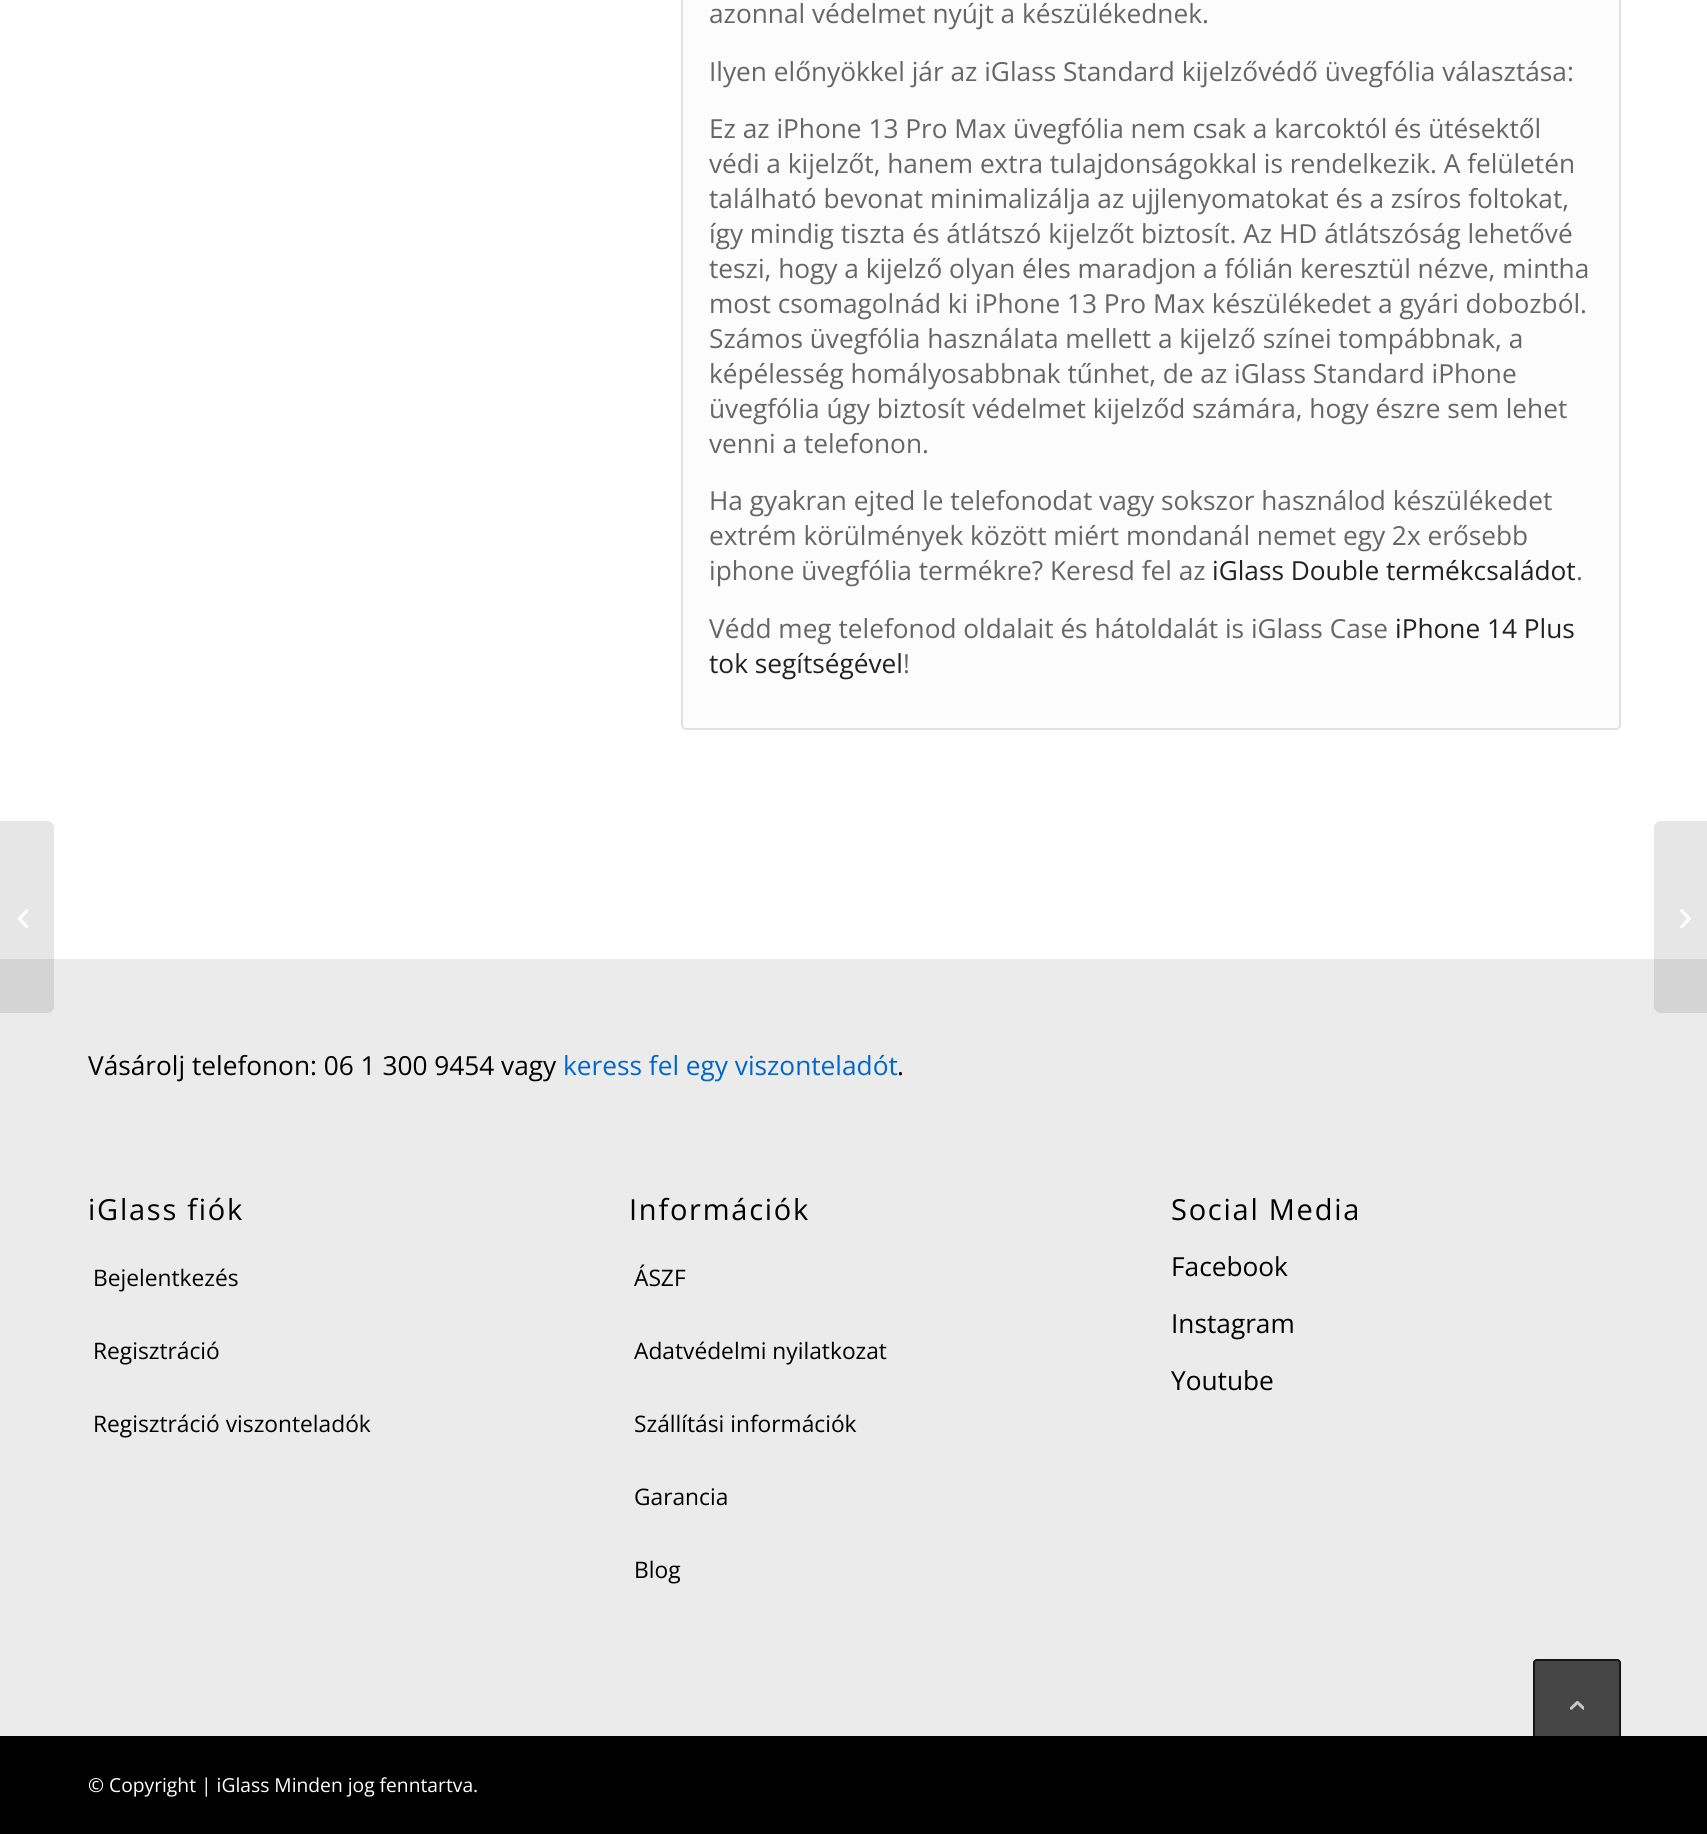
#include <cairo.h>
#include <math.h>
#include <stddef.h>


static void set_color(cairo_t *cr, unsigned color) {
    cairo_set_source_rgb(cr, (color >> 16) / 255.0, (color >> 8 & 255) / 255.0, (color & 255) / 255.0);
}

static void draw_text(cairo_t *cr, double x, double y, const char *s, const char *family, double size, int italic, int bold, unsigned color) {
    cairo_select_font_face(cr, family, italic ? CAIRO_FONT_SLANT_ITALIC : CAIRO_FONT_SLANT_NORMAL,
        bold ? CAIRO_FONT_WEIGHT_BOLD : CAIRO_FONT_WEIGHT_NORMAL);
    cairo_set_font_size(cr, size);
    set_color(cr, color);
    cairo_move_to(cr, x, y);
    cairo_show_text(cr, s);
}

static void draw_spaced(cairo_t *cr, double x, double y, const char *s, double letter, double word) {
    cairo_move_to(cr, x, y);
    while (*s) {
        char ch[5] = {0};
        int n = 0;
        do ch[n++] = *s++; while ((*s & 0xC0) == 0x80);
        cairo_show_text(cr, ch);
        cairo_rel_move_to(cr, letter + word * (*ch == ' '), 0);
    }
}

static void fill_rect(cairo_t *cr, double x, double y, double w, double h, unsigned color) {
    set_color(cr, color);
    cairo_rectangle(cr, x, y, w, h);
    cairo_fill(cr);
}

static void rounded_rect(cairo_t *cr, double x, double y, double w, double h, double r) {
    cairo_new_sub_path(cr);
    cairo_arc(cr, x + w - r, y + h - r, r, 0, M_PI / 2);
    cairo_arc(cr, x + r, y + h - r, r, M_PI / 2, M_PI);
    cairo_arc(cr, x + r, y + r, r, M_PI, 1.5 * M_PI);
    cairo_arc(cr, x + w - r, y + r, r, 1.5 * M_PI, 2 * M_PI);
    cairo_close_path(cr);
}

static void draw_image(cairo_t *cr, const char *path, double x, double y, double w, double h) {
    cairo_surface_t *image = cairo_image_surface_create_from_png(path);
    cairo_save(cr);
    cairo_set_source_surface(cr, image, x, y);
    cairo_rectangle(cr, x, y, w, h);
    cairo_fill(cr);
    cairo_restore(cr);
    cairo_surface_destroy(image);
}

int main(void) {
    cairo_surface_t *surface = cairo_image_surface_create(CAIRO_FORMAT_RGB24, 1707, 1834);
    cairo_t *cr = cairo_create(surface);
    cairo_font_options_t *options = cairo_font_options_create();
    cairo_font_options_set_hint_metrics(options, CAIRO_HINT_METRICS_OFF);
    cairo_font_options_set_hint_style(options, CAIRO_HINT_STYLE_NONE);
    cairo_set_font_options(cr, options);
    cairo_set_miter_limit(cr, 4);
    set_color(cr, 0x000000);
    cairo_paint(cr);
    fill_rect(cr, 0, 0, 1707, 959, 0xFFFFFF);
    fill_rect(cr, 0, 959, 1707, 777, 0xEBEBEB);
    cairo_set_source_rgba(cr, 0, 0, 0, 0.1);
    cairo_new_path(cr);
    cairo_move_to(cr, 0, 821);
    cairo_line_to(cr, 47, 821);
    cairo_curve_to(cr, 51, 821, 54, 824, 54, 828);
    cairo_line_to(cr, 54, 1006);
    cairo_curve_to(cr, 54, 1010, 51, 1013, 47, 1013);
    cairo_line_to(cr, 0, 1013);
    cairo_close_path(cr);
    cairo_fill(cr);
    draw_image(cr, "assets/img1.png", 18, 909, 10, 20);
    set_color(cr, 0xFCFCFC);
    cairo_new_path(cr);
    cairo_move_to(cr, 682, -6);
    cairo_line_to(cr, 1620, -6);
    cairo_line_to(cr, 1620, 725);
    cairo_curve_to(cr, 1620, 727, 1618, 729, 1616, 729);
    cairo_line_to(cr, 686, 729);
    cairo_curve_to(cr, 684, 729, 682, 727, 682, 725);
    cairo_close_path(cr);
    cairo_fill_preserve(cr);
    set_color(cr, 0xE1E1E1);
    cairo_stroke(cr);
    draw_text(cr, 709, 23, "azonnal védelmet nyújt a készülékednek.", "Open Sans", 26.25, 0, 0, 0x666666);
    draw_text(cr, 709, 81, "Ilyen előnyökkel jár az iGlass Standard kijelzővédő üvegfólia választása:", "Open Sans", 26.25, 0, 0, 0x666666);
    draw_text(cr, 709, 138, "Ez az iPhone 13 Pro Max üvegfólia nem csak a karcoktól és ütésektől", "Open Sans", 26.25, 0, 0, 0x666666);
    draw_text(cr, 709, 173, "védi a kijelzőt, hanem extra tulajdonságokkal is rendelkezik. A felületén", "Open Sans", 26.25, 0, 0, 0x666666);
    draw_text(cr, 709, 208, "található bevonat minimalizálja az ujjlenyomatokat és a zsíros foltokat,", "Open Sans", 26.25, 0, 0, 0x666666);
    draw_text(cr, 709, 243, "így mindig tiszta és átlátszó kijelzőt biztosít. Az HD átlátszóság lehetővé", "Open Sans", 26.25, 0, 0, 0x666666);
    draw_text(cr, 709, 278, "teszi, hogy a kijelző olyan éles maradjon a fólián keresztül nézve, mintha", "Open Sans", 26.25, 0, 0, 0x666666);
    draw_text(cr, 709, 313, "most csomagolnád ki iPhone 13 Pro Max készülékedet a gyári dobozból.", "Open Sans", 26.25, 0, 0, 0x666666);
    draw_text(cr, 709, 348, "Számos üvegfólia használata mellett a kijelző színei tompábbnak, a", "Open Sans", 26.25, 0, 0, 0x666666);
    draw_text(cr, 709, 383, "képélesség homályosabbnak tűnhet, de az iGlass Standard iPhone", "Open Sans", 26.25, 0, 0, 0x666666);
    draw_text(cr, 709, 418, "üvegfólia úgy biztosít védelmet kijelződ számára, hogy észre sem lehet", "Open Sans", 26.25, 0, 0, 0x666666);
    draw_text(cr, 709, 453, "venni a telefonon.", "Open Sans", 26.25, 0, 0, 0x666666);
    draw_text(cr, 709, 510, "Ha gyakran ejted le telefonodat vagy sokszor használod készülékedet", "Open Sans", 26.25, 0, 0, 0x666666);
    draw_text(cr, 709, 545, "extrém körülmények között miért mondanál nemet egy 2x erősebb", "Open Sans", 26.25, 0, 0, 0x666666);
    draw_text(cr, 709, 580, "iphone üvegfólia termékre? Keresd fel az", "Open Sans", 26.25, 0, 0, 0x666666);
    draw_text(cr, 1212, 580, "iGlass Double termékcsaládot", "Open Sans", 26.25, 0, 0, 0x222222);
    draw_text(cr, 1576, 580, ".", "Open Sans", 26.25, 0, 0, 0x666666);
    draw_text(cr, 709, 638, "Védd meg telefonod oldalait és hátoldalát is iGlass Case", "Open Sans", 26.25, 0, 0, 0x666666);
    draw_text(cr, 1395, 638, "iPhone 14 Plus", "Open Sans", 26.25, 0, 0, 0x222222);
    draw_text(cr, 709, 673, "tok segítségével", "Open Sans", 26.25, 0, 0, 0x222222);
    draw_text(cr, 903, 673, "!", "Open Sans", 26.25, 0, 0, 0x666666);
    draw_text(cr, 88, 1075, "Vásárolj telefonon: 06 1 300 9454 vagy", "Open Sans", 26.25, 0, 0, 0x000000);
    draw_text(cr, 563, 1075, "keress fel egy viszonteladót", "Open Sans", 26.25, 0, 0, 0x0066CC);
    draw_text(cr, 897, 1075, ".", "Open Sans", 26.25, 0, 0, 0x000000);
    cairo_set_font_size(cr, 29);
    draw_spaced(cr, 88, 1220, "iGlass fiók", 1.75, 0);
    draw_text(cr, 93, 1286, "Bejelentkezés", "Open Sans", 22.75, 0, 0, 0x000000);
    draw_text(cr, 93, 1359, "Regisztráció", "Open Sans", 22.75, 0, 0, 0x000000);
    draw_text(cr, 93, 1432, "Regisztráció viszonteladók", "Open Sans", 22.75, 0, 0, 0x000000);
    cairo_set_font_size(cr, 29);
    draw_spaced(cr, 629, 1220, "Információk", 1.75, 0);
    draw_text(cr, 634, 1286, "ÁSZF", "Open Sans", 22.75, 0, 0, 0x000000);
    draw_text(cr, 634, 1359, "Adatvédelmi nyilatkozat", "Open Sans", 22.75, 0, 0, 0x000000);
    draw_text(cr, 634, 1432, "Szállítási információk", "Open Sans", 22.75, 0, 0, 0x000000);
    draw_text(cr, 634, 1505, "Garancia", "Open Sans", 22.75, 0, 0, 0x000000);
    draw_text(cr, 634, 1578, "Blog", "Open Sans", 22.75, 0, 0, 0x000000);
    cairo_set_font_size(cr, 29);
    draw_spaced(cr, 1171, 1220, "Social Media", 1.75, 0);
    draw_text(cr, 1171, 1276, "Facebook", "Open Sans", 26.25, 0, 0, 0x000000);
    draw_text(cr, 1171, 1333, "Instagram", "Open Sans", 26.25, 0, 0, 0x000000);
    draw_text(cr, 1171, 1390, "Youtube", "Open Sans", 26.25, 0, 0, 0x000000);
    draw_text(cr, 88, 1792, "© Copyright | iGlass Minden jog fenntartva.", "Open Sans", 19.25, 0, 0, 0xFFFFFF);
    cairo_set_source_rgba(cr, 0, 0, 0, 0.1);
    cairo_new_path(cr);
    cairo_move_to(cr, 1661, 821);
    cairo_line_to(cr, 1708, 821);
    cairo_line_to(cr, 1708, 1013);
    cairo_line_to(cr, 1661, 1013);
    cairo_curve_to(cr, 1657, 1013, 1654, 1010, 1654, 1006);
    cairo_line_to(cr, 1654, 828);
    cairo_curve_to(cr, 1654, 824, 1657, 821, 1661, 821);
    cairo_close_path(cr);
    cairo_fill(cr);
    draw_image(cr, "assets/img2.png", 1680, 909, 11, 20);
    cairo_set_source_rgba(cr, 0, 0, 0, 0.7);
    rounded_rect(cr, 1533, 1659, 88, 88, 4);
    cairo_fill(cr);
    rounded_rect(cr, 1534, 1660, 86, 86, 3);
    cairo_stroke(cr);
    draw_image(cr, "assets/img3.png", 1570, 1700, 14, 10);
    cairo_surface_write_to_png(surface, "output.png");
    cairo_font_options_destroy(options);
    cairo_destroy(cr);
    cairo_surface_destroy(surface);
    return 0;
}
